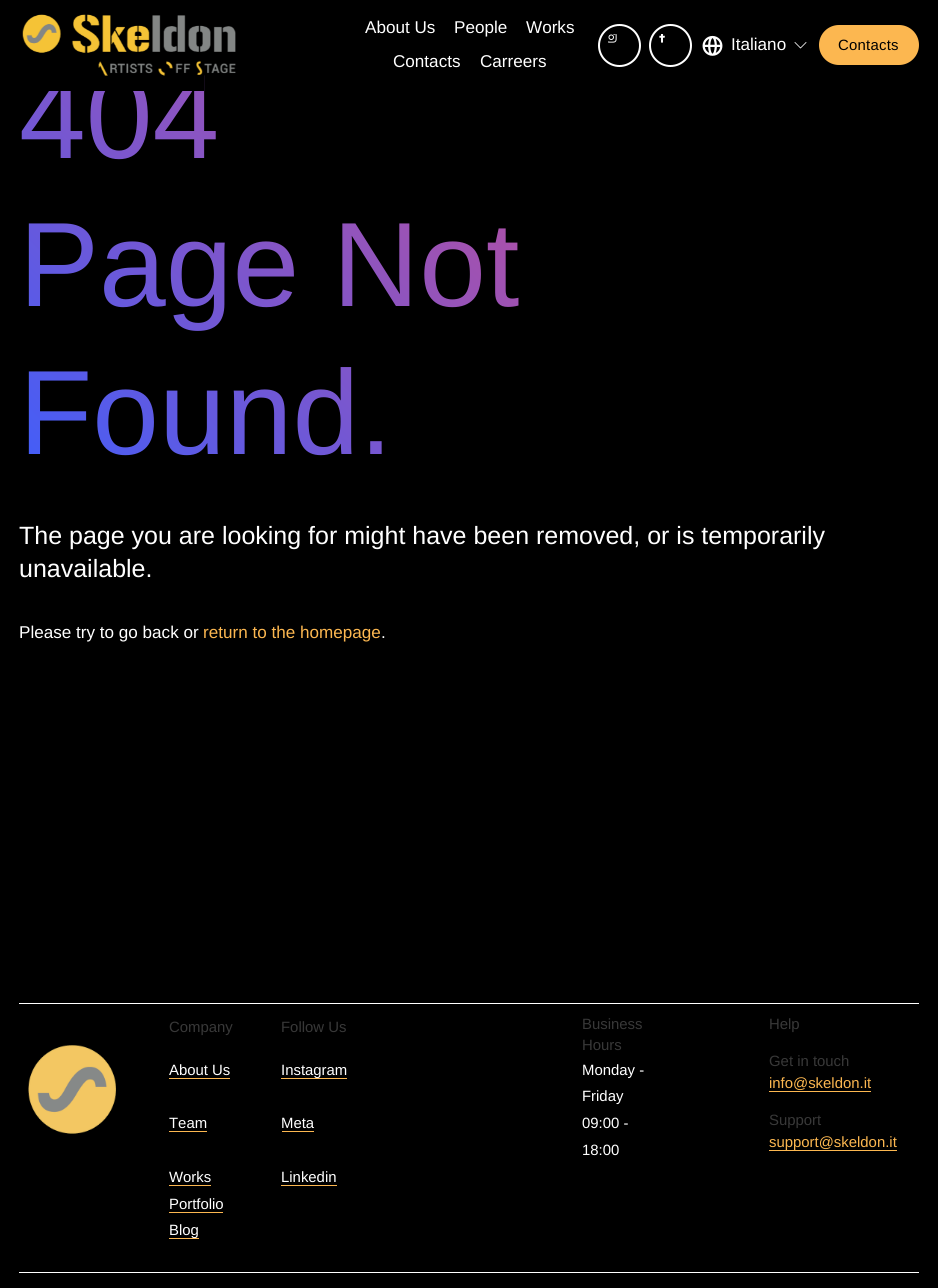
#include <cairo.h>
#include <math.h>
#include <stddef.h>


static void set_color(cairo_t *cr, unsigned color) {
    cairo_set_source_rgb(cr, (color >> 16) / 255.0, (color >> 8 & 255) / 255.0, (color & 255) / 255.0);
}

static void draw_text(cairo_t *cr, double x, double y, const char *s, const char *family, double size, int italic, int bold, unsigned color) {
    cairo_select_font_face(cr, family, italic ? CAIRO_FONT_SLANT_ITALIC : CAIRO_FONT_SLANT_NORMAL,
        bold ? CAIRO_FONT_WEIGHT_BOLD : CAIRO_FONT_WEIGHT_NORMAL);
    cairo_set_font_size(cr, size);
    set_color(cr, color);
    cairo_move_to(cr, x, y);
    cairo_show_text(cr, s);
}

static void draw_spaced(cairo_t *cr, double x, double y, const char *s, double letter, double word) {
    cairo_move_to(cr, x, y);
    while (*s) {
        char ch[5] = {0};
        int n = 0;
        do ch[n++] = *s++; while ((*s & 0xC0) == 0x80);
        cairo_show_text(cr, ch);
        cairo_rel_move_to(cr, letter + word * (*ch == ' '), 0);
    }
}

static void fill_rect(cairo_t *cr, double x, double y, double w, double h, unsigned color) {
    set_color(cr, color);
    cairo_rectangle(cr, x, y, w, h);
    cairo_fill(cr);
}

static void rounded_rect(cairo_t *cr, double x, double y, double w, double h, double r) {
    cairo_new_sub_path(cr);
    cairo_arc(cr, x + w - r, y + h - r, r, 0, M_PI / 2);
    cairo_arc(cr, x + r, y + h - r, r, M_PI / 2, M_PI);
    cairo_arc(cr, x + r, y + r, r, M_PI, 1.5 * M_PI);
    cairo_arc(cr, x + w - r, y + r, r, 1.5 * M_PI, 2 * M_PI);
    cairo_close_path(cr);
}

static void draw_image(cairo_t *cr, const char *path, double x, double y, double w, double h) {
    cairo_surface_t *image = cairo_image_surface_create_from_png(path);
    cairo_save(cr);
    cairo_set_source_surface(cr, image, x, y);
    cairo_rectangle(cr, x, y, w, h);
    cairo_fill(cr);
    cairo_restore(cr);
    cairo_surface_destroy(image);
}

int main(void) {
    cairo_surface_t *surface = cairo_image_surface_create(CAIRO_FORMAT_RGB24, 938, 1288);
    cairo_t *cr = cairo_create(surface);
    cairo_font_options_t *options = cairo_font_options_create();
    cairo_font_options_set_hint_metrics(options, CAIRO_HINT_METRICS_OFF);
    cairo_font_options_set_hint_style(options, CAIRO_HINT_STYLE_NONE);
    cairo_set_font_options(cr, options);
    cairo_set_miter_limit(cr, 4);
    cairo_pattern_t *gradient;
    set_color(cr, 0x000000);
    cairo_paint(cr);
    cairo_select_font_face(cr, "Liberation Sans", CAIRO_FONT_SLANT_NORMAL, CAIRO_FONT_WEIGHT_NORMAL);
    cairo_set_font_size(cr, 120);
    gradient = cairo_pattern_create_linear(133, 601, 805, -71);
    cairo_pattern_add_color_stop_rgba(gradient, 0, 0.247, 0.369, 0.984, 1);
    cairo_pattern_add_color_stop_rgba(gradient, 1, 0.988, 0.275, 0.42, 1);
    cairo_set_source(cr, gradient);
    cairo_pattern_destroy(gradient);
    cairo_move_to(cr, 19, 158);
    cairo_show_text(cr, "404");
    fill_rect(cr, 48, 74, 156, 17, 0x000000);
    draw_image(cr, "assets/img1.png", 22, 14, 214, 62);
    draw_text(cr, 365, 33, "About Us", "Liberation Sans", 17.1, 0, 0, 0xFFFFFF);
    draw_text(cr, 454, 33, "People", "Liberation Sans", 17.1, 0, 0, 0xFFFFFF);
    draw_text(cr, 526, 33, "Works", "Liberation Sans", 17.1, 0, 0, 0xFFFFFF);
    draw_text(cr, 393, 67, "Contacts", "Liberation Sans", 17.1, 0, 0, 0xFFFFFF);
    draw_text(cr, 480, 67, "Carreers", "Liberation Sans", 17.1, 0, 0, 0xFFFFFF);
    cairo_new_path(cr);
    cairo_arc(cr, 619.5, 45.5, 20.5, 0, 2 * M_PI);
    cairo_stroke(cr);
    draw_image(cr, "assets/img2.png", 608, 34, 9, 9);
    cairo_arc(cr, 670.5, 45.5, 20.5, 0, 2 * M_PI);
    cairo_stroke(cr);
    draw_image(cr, "assets/img3.png", 659, 34, 6, 9);
    draw_image(cr, "assets/img4.png", 702, 35, 21, 21);
    draw_text(cr, 731, 50, "Italiano", "Liberation Sans", 17.1, 0, 0, 0xFFFFFF);
    cairo_new_path(cr);
    cairo_move_to(cr, 806, 42.5);
    cairo_line_to(cr, 800.5, 48);
    cairo_line_to(cr, 795, 42.5);
    cairo_set_line_width(cr, 0.8);
    cairo_set_line_cap(cr, CAIRO_LINE_CAP_SQUARE);
    cairo_stroke(cr);
    set_color(cr, 0xFCB750);
    rounded_rect(cr, 819, 25, 100, 40, 20);
    cairo_fill(cr);
    cairo_set_font_size(cr, 14.9);
    set_color(cr, 0x000000);
    draw_spaced(cr, 838, 50, "Contacts", 0.25, 0);
    cairo_set_font_size(cr, 120);
    gradient = cairo_pattern_create_linear(133, 601, 805, -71);
    cairo_pattern_add_color_stop_rgba(gradient, 0, 0.247, 0.369, 0.984, 1);
    cairo_pattern_add_color_stop_rgba(gradient, 1, 0.988, 0.275, 0.42, 1);
    cairo_set_source(cr, gradient);
    cairo_pattern_destroy(gradient);
    cairo_move_to(cr, 19, 306);
    cairo_show_text(cr, "Page Not");
    cairo_move_to(cr, 19, 454);
    cairo_show_text(cr, "Found.");
    draw_text(cr, 19, 544, "The page you are looking for might have been removed, or is temporarily", "Liberation Sans", 25, 0, 0, 0xFFFFFF);
    draw_text(cr, 19, 577, "unavailable.", "Liberation Sans", 25, 0, 0, 0xFFFFFF);
    draw_text(cr, 19, 638, "Please try to go back or", "Liberation Sans", 17.1, 0, 0, 0xFFFFFF);
    draw_text(cr, 203, 638, "return to the homepage", "Liberation Sans", 17.1, 0, 0, 0xFCB750);
    draw_text(cr, 381, 638, ".", "Liberation Sans", 17.1, 0, 0, 0xFFFFFF);
    fill_rect(cr, 19, 1003, 900, 1, 0xFFFFFF);
    draw_text(cr, 169, 1032, "Company", "Liberation Sans", 14.9, 0, 0, 0x383838);
    draw_text(cr, 281, 1032, "Follow Us", "Liberation Sans", 14.9, 0, 0, 0x383838);
    draw_text(cr, 582, 1029, "Business", "Liberation Sans", 14.9, 0, 0, 0x383838);
    draw_text(cr, 582, 1050, "Hours", "Liberation Sans", 14.9, 0, 0, 0x383838);
    draw_text(cr, 769, 1029, "Help", "Liberation Sans", 14.9, 0, 0, 0x383838);
    draw_text(cr, 769, 1066, "Get in touch", "Liberation Sans", 14.9, 0, 0, 0x383838);
    draw_text(cr, 769, 1088, "info@skeldon.it", "Liberation Sans", 14.9, 0, 0, 0xFCB750);
    fill_rect(cr, 769, 1091, 102, 1, 0xFCB750);
    draw_text(cr, 769, 1125, "Support", "Liberation Sans", 14.9, 0, 0, 0x383838);
    fill_rect(cr, 769, 1150, 128, 1, 0xFCB750);
    draw_text(cr, 769, 1147, "support@skeldon.it", "Liberation Sans", 14.9, 0, 0, 0xFCB750);
    draw_image(cr, "assets/img5.png", 28, 1045, 88, 89);
    draw_text(cr, 169, 1075, "About Us", "Liberation Sans", 14.9, 0, 0, 0xFFFFFF);
    fill_rect(cr, 169, 1078, 61, 1, 0xFCB750);
    fill_rect(cr, 281, 1078, 66, 1, 0xFCB750);
    draw_text(cr, 281, 1075, "Instagram", "Liberation Sans", 14.9, 0, 0, 0xFFFFFF);
    draw_text(cr, 582, 1075, "Monday -", "Liberation Sans", 14.9, 0, 0, 0xFFFFFF);
    draw_text(cr, 582, 1101, "Friday", "Liberation Sans", 14.9, 0, 0, 0xFFFFFF);
    draw_text(cr, 169, 1128, "Team", "Liberation Sans", 14.9, 0, 0, 0xFFFFFF);
    fill_rect(cr, 169, 1131, 38, 1, 0xFCB750);
    draw_text(cr, 281, 1128, "Meta", "Liberation Sans", 14.9, 0, 0, 0xFFFFFF);
    fill_rect(cr, 282, 1131, 32, 1, 0xFCB750);
    draw_text(cr, 582, 1128, "09:00 -", "Liberation Sans", 14.9, 0, 0, 0xFFFFFF);
    draw_text(cr, 582, 1155, "18:00", "Liberation Sans", 14.9, 0, 0, 0xFFFFFF);
    draw_text(cr, 169, 1182, "Works", "Liberation Sans", 14.9, 0, 0, 0xFFFFFF);
    fill_rect(cr, 169, 1185, 42, 1, 0xFCB750);
    draw_text(cr, 281, 1182, "Linkedin", "Liberation Sans", 14.9, 0, 0, 0xFFFFFF);
    fill_rect(cr, 281, 1185, 56, 1, 0xFCB750);
    draw_text(cr, 169, 1209, "Portfolio", "Liberation Sans", 14.9, 0, 0, 0xFFFFFF);
    fill_rect(cr, 169, 1212, 54, 1, 0xFCB750);
    fill_rect(cr, 169, 1238, 30, 1, 0xFCB750);
    draw_text(cr, 169, 1235, "Blog", "Liberation Sans", 14.9, 0, 0, 0xFFFFFF);
    fill_rect(cr, 19, 1272, 900, 1, 0xFFFFFF);
    cairo_surface_write_to_png(surface, "output.png");
    cairo_font_options_destroy(options);
    cairo_destroy(cr);
    cairo_surface_destroy(surface);
    return 0;
}
